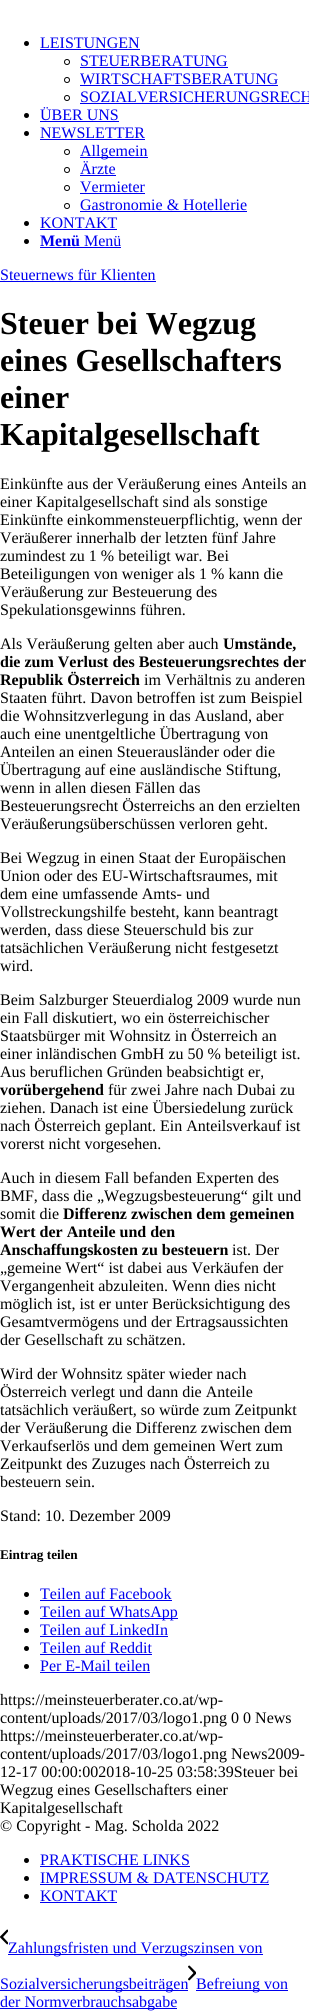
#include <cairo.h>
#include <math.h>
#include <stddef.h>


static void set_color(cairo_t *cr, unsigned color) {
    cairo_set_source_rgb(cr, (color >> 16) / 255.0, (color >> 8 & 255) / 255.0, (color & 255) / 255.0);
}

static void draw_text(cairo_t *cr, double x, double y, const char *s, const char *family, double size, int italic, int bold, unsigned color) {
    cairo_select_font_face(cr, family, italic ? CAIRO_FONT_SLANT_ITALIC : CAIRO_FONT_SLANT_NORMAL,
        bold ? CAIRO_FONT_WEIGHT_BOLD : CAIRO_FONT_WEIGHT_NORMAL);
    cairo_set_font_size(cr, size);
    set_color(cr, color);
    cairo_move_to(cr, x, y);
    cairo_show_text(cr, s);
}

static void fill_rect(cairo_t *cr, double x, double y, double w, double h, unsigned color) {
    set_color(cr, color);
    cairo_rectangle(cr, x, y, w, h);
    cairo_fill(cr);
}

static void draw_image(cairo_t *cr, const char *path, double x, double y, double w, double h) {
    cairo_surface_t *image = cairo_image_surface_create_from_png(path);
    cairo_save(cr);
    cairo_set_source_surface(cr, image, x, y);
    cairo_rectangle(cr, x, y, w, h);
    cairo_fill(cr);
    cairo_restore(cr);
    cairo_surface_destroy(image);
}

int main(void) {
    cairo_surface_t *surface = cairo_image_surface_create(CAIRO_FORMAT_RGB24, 309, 2012);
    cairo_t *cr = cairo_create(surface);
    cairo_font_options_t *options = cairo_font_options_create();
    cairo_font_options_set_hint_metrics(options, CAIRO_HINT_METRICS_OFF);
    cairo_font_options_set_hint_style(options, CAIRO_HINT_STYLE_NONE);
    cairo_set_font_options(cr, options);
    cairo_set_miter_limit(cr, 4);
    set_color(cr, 0xFFFFFF);
    cairo_paint(cr);
    set_color(cr, 0x000000);
    cairo_arc(cr, 26.5, 43.5, 2.5, 0, 2 * M_PI);
    cairo_fill(cr);
    draw_text(cr, 40, 48, "LEISTUNGEN", "Liberation Serif", 16, 0, 0, 0x0000EE);
    fill_rect(cr, 40, 49, 100, 1, 0x0000EE);
    cairo_new_path(cr);
    cairo_arc(cr, 67, 62, 2.5, 0, 2 * M_PI);
    set_color(cr, 0x000000);
    cairo_set_line_width(cr, 1);
    cairo_stroke(cr);
    draw_text(cr, 80, 66, "STEUERBERATUNG", "Liberation Serif", 16, 0, 0, 0x0000EE);
    fill_rect(cr, 80, 67, 148, 1, 0x0000EE);
    cairo_new_path(cr);
    cairo_arc(cr, 67, 80, 2.5, 0, 2 * M_PI);
    set_color(cr, 0x000000);
    cairo_stroke(cr);
    draw_text(cr, 80, 84, "WIRTSCHAFTSBERATUNG", "Liberation Serif", 16, 0, 0, 0x0000EE);
    fill_rect(cr, 80, 85, 198, 1, 0x0000EE);
    cairo_new_path(cr);
    cairo_arc(cr, 67, 98, 2.5, 0, 2 * M_PI);
    set_color(cr, 0x000000);
    cairo_stroke(cr);
    draw_text(cr, 80, 102, "SOZIALVERSICHERUNGSRECH", "Liberation Serif", 16, 0, 0, 0x0000EE);
    fill_rect(cr, 80, 103, 229, 1, 0x0000EE);
    set_color(cr, 0x000000);
    cairo_new_path(cr);
    cairo_arc(cr, 26.5, 115.5, 2.5, 0, 2 * M_PI);
    cairo_fill(cr);
    draw_text(cr, 40, 120, "ÜBER UNS", "Liberation Serif", 16, 0, 0, 0x0000EE);
    fill_rect(cr, 40, 121, 79, 1, 0x0000EE);
    set_color(cr, 0x000000);
    cairo_new_path(cr);
    cairo_arc(cr, 26.5, 133.5, 2.5, 0, 2 * M_PI);
    cairo_fill(cr);
    draw_text(cr, 40, 138, "NEWSLETTER", "Liberation Serif", 16, 0, 0, 0x0000EE);
    fill_rect(cr, 40, 139, 105, 1, 0x0000EE);
    cairo_new_path(cr);
    cairo_arc(cr, 67, 152, 2.5, 0, 2 * M_PI);
    set_color(cr, 0x000000);
    cairo_stroke(cr);
    fill_rect(cr, 80, 157, 68, 1, 0x0000EE);
    draw_text(cr, 80, 156, "Allgemein", "Liberation Serif", 16, 0, 0, 0x0000EE);
    cairo_new_path(cr);
    cairo_arc(cr, 67, 170, 2.5, 0, 2 * M_PI);
    set_color(cr, 0x000000);
    cairo_stroke(cr);
    draw_text(cr, 80, 174, "Ärzte", "Liberation Serif", 16, 0, 0, 0x0000EE);
    fill_rect(cr, 80, 175, 36, 1, 0x0000EE);
    cairo_new_path(cr);
    cairo_arc(cr, 67, 188, 2.5, 0, 2 * M_PI);
    set_color(cr, 0x000000);
    cairo_stroke(cr);
    draw_text(cr, 80, 192, "Vermieter", "Liberation Serif", 16, 0, 0, 0x0000EE);
    fill_rect(cr, 80, 193, 65, 1, 0x0000EE);
    cairo_new_path(cr);
    cairo_arc(cr, 67, 206, 2.5, 0, 2 * M_PI);
    set_color(cr, 0x000000);
    cairo_stroke(cr);
    draw_text(cr, 80, 210, "Gastronomie & Hotellerie", "Liberation Serif", 16, 0, 0, 0x0000EE);
    fill_rect(cr, 80, 211, 167, 1, 0x0000EE);
    set_color(cr, 0x000000);
    cairo_new_path(cr);
    cairo_arc(cr, 26.5, 223.5, 2.5, 0, 2 * M_PI);
    cairo_fill(cr);
    draw_text(cr, 40, 228, "KONTAKT", "Liberation Serif", 16, 0, 0, 0x0000EE);
    fill_rect(cr, 40, 229, 77, 1, 0x0000EE);
    set_color(cr, 0x000000);
    cairo_new_path(cr);
    cairo_arc(cr, 26.5, 241.5, 2.5, 0, 2 * M_PI);
    cairo_fill(cr);
    draw_text(cr, 40, 246, "Menü", "Liberation Serif", 16, 0, 1, 0x0000EE);
    fill_rect(cr, 40, 247, 81, 1, 0x0000EE);
    draw_text(cr, 84, 246, "Menü", "Liberation Serif", 16, 0, 0, 0x0000EE);
    draw_text(cr, 0, 280, "Steuernews für Klienten", "Liberation Serif", 16, 0, 0, 0x0000EE);
    fill_rect(cr, 0, 281, 156, 1, 0x0000EE);
    draw_text(cr, 0, 334, "Steuer bei Wegzug", "Liberation Serif", 32, 0, 1, 0x000000);
    draw_text(cr, 0, 371, "eines Gesellschafters", "Liberation Serif", 32, 0, 1, 0x000000);
    draw_text(cr, 0, 408, "einer", "Liberation Serif", 32, 0, 1, 0x000000);
    draw_text(cr, 0, 445, "Kapitalgesellschaft", "Liberation Serif", 32, 0, 1, 0x000000);
    draw_text(cr, 0, 489, "Einkünfte aus der Veräußerung eines Anteils an", "Liberation Serif", 16, 0, 0, 0x000000);
    draw_text(cr, 0, 507, "einer Kapitalgesellschaft sind als sonstige", "Liberation Serif", 16, 0, 0, 0x000000);
    draw_text(cr, 0, 525, "Einkünfte einkommensteuerpflichtig, wenn der", "Liberation Serif", 16, 0, 0, 0x000000);
    draw_text(cr, 0, 543, "Veräußerer innerhalb der letzten fünf Jahre", "Liberation Serif", 16, 0, 0, 0x000000);
    draw_text(cr, 0, 561, "zumindest zu 1 % beteiligt war. Bei", "Liberation Serif", 16, 0, 0, 0x000000);
    draw_text(cr, 0, 579, "Beteiligungen von weniger als 1 % kann die", "Liberation Serif", 16, 0, 0, 0x000000);
    draw_text(cr, 0, 597, "Veräußerung zur Besteuerung des", "Liberation Serif", 16, 0, 0, 0x000000);
    draw_text(cr, 0, 615, "Spekulationsgewinns führen.", "Liberation Serif", 16, 0, 0, 0x000000);
    draw_text(cr, 0, 649, "Als Veräußerung gelten aber auch", "Liberation Serif", 16, 0, 0, 0x000000);
    draw_text(cr, 223, 649, "Umstände,", "Liberation Serif", 16, 0, 1, 0x000000);
    draw_text(cr, 0, 667, "die zum Verlust des Besteuerungsrechtes der", "Liberation Serif", 16, 0, 1, 0x000000);
    draw_text(cr, 0, 685, "Republik Österreich", "Liberation Serif", 16, 0, 1, 0x000000);
    draw_text(cr, 144, 685, "im Verhältnis zu anderen", "Liberation Serif", 16, 0, 0, 0x000000);
    draw_text(cr, 0, 703, "Staaten führt. Davon betroffen ist zum Beispiel", "Liberation Serif", 16, 0, 0, 0x000000);
    draw_text(cr, 0, 721, "die Wohnsitzverlegung in das Ausland, aber", "Liberation Serif", 16, 0, 0, 0x000000);
    draw_text(cr, 0, 739, "auch eine unentgeltliche Übertragung von", "Liberation Serif", 16, 0, 0, 0x000000);
    draw_text(cr, 0, 757, "Anteilen an einen Steuerausländer oder die", "Liberation Serif", 16, 0, 0, 0x000000);
    draw_text(cr, 0, 775, "Übertragung auf eine ausländische Stiftung,", "Liberation Serif", 16, 0, 0, 0x000000);
    draw_text(cr, 0, 793, "wenn in allen diesen Fällen das", "Liberation Serif", 16, 0, 0, 0x000000);
    draw_text(cr, 0, 811, "Besteuerungsrecht Österreichs an den erzielten", "Liberation Serif", 16, 0, 0, 0x000000);
    draw_text(cr, 0, 829, "Veräußerungsüberschüssen verloren geht.", "Liberation Serif", 16, 0, 0, 0x000000);
    draw_text(cr, 0, 863, "Bei Wegzug in einen Staat der Europäischen", "Liberation Serif", 16, 0, 0, 0x000000);
    draw_text(cr, 0, 881, "Union oder des EU-Wirtschaftsraumes, mit", "Liberation Serif", 16, 0, 0, 0x000000);
    draw_text(cr, 0, 899, "dem eine umfassende Amts- und", "Liberation Serif", 16, 0, 0, 0x000000);
    draw_text(cr, 0, 917, "Vollstreckungshilfe besteht, kann beantragt", "Liberation Serif", 16, 0, 0, 0x000000);
    draw_text(cr, 0, 935, "werden, dass diese Steuerschuld bis zur", "Liberation Serif", 16, 0, 0, 0x000000);
    draw_text(cr, 0, 953, "tatsächlichen Veräußerung nicht festgesetzt", "Liberation Serif", 16, 0, 0, 0x000000);
    draw_text(cr, 0, 971, "wird.", "Liberation Serif", 16, 0, 0, 0x000000);
    draw_text(cr, 0, 1005, "Beim Salzburger Steuerdialog 2009 wurde nun", "Liberation Serif", 16, 0, 0, 0x000000);
    draw_text(cr, 0, 1023, "ein Fall diskutiert, wo ein österreichischer", "Liberation Serif", 16, 0, 0, 0x000000);
    draw_text(cr, 0, 1041, "Staatsbürger mit Wohnsitz in Österreich an", "Liberation Serif", 16, 0, 0, 0x000000);
    draw_text(cr, 0, 1059, "einer inländischen GmbH zu 50 % beteiligt ist.", "Liberation Serif", 16, 0, 0, 0x000000);
    draw_text(cr, 0, 1077, "Aus beruflichen Gründen beabsichtigt er,", "Liberation Serif", 16, 0, 0, 0x000000);
    draw_text(cr, 0, 1095, "vorübergehend", "Liberation Serif", 16, 0, 1, 0x000000);
    draw_text(cr, 108, 1095, "für zwei Jahre nach Dubai zu", "Liberation Serif", 16, 0, 0, 0x000000);
    draw_text(cr, 0, 1113, "ziehen. Danach ist eine Übersiedelung zurück", "Liberation Serif", 16, 0, 0, 0x000000);
    draw_text(cr, 0, 1131, "nach Österreich geplant. Ein Anteilsverkauf ist", "Liberation Serif", 16, 0, 0, 0x000000);
    draw_text(cr, 0, 1149, "vorerst nicht vorgesehen.", "Liberation Serif", 16, 0, 0, 0x000000);
    draw_text(cr, 0, 1183, "Auch in diesem Fall befanden Experten des", "Liberation Serif", 16, 0, 0, 0x000000);
    draw_text(cr, 0, 1201, "BMF, dass die „Wegzugsbesteuerung“ gilt und", "Liberation Serif", 16, 0, 0, 0x000000);
    draw_text(cr, 0, 1219, "somit die", "Liberation Serif", 16, 0, 0, 0x000000);
    draw_text(cr, 63, 1219, "Differenz zwischen dem gemeinen", "Liberation Serif", 16, 0, 1, 0x000000);
    draw_text(cr, 0, 1237, "Wert der Anteile und den", "Liberation Serif", 16, 0, 1, 0x000000);
    draw_text(cr, 0, 1255, "Anschaffungskosten zu besteuern", "Liberation Serif", 16, 0, 1, 0x000000);
    draw_text(cr, 232, 1255, "ist. Der", "Liberation Serif", 16, 0, 0, 0x000000);
    draw_text(cr, 0, 1273, "„gemeine Wert“ ist dabei aus Verkäufen der", "Liberation Serif", 16, 0, 0, 0x000000);
    draw_text(cr, 0, 1291, "Vergangenheit abzuleiten. Wenn dies nicht", "Liberation Serif", 16, 0, 0, 0x000000);
    draw_text(cr, 0, 1309, "möglich ist, ist er unter Berücksichtigung des", "Liberation Serif", 16, 0, 0, 0x000000);
    draw_text(cr, 0, 1327, "Gesamtvermögens und der Ertragsaussichten", "Liberation Serif", 16, 0, 0, 0x000000);
    draw_text(cr, 0, 1345, "der Gesellschaft zu schätzen.", "Liberation Serif", 16, 0, 0, 0x000000);
    draw_text(cr, 0, 1379, "Wird der Wohnsitz später wieder nach", "Liberation Serif", 16, 0, 0, 0x000000);
    draw_text(cr, 0, 1397, "Österreich verlegt und dann die Anteile", "Liberation Serif", 16, 0, 0, 0x000000);
    draw_text(cr, 0, 1415, "tatsächlich veräußert, so würde zum Zeitpunkt", "Liberation Serif", 16, 0, 0, 0x000000);
    draw_text(cr, 0, 1433, "der Veräußerung die Differenz zwischen dem", "Liberation Serif", 16, 0, 0, 0x000000);
    draw_text(cr, 0, 1451, "Verkaufserlös und dem gemeinen Wert zum", "Liberation Serif", 16, 0, 0, 0x000000);
    draw_text(cr, 0, 1469, "Zeitpunkt des Zuzuges nach Österreich zu", "Liberation Serif", 16, 0, 0, 0x000000);
    draw_text(cr, 0, 1487, "besteuern sein.", "Liberation Serif", 16, 0, 0, 0x000000);
    draw_text(cr, 0, 1521, "Stand: 10. Dezember 2009", "Liberation Serif", 16, 0, 0, 0x000000);
    draw_text(cr, 0, 1559, "Eintrag teilen", "Liberation Serif", 13.25, 0, 1, 0x000000);
    cairo_new_path(cr);
    cairo_arc(cr, 26.5, 1594.5, 2.5, 0, 2 * M_PI);
    cairo_fill(cr);
    draw_text(cr, 40, 1599, "Teilen auf Facebook", "Liberation Serif", 16, 0, 0, 0x0000EE);
    fill_rect(cr, 40, 1600, 132, 1, 0x0000EE);
    set_color(cr, 0x000000);
    cairo_new_path(cr);
    cairo_arc(cr, 26.5, 1612.5, 2.5, 0, 2 * M_PI);
    cairo_fill(cr);
    fill_rect(cr, 40, 1618, 138, 1, 0x0000EE);
    draw_text(cr, 40, 1617, "Teilen auf WhatsApp", "Liberation Serif", 16, 0, 0, 0x0000EE);
    set_color(cr, 0x000000);
    cairo_new_path(cr);
    cairo_arc(cr, 26.5, 1630.5, 2.5, 0, 2 * M_PI);
    cairo_fill(cr);
    draw_text(cr, 40, 1635, "Teilen auf LinkedIn", "Liberation Serif", 16, 0, 0, 0x0000EE);
    fill_rect(cr, 40, 1636, 128, 1, 0x0000EE);
    set_color(cr, 0x000000);
    cairo_new_path(cr);
    cairo_arc(cr, 26.5, 1648.5, 2.5, 0, 2 * M_PI);
    cairo_fill(cr);
    draw_text(cr, 40, 1653, "Teilen auf Reddit", "Liberation Serif", 16, 0, 0, 0x0000EE);
    fill_rect(cr, 40, 1654, 112, 1, 0x0000EE);
    set_color(cr, 0x000000);
    cairo_new_path(cr);
    cairo_arc(cr, 26.5, 1666.5, 2.5, 0, 2 * M_PI);
    cairo_fill(cr);
    draw_text(cr, 40, 1671, "Per E-Mail teilen", "Liberation Serif", 16, 0, 0, 0x0000EE);
    fill_rect(cr, 40, 1672, 110, 1, 0x0000EE);
    draw_text(cr, 0, 1705, "https://meinsteuerberater.co.at/wp-", "Liberation Serif", 16, 0, 0, 0x000000);
    draw_text(cr, 0, 1723, "content/uploads/2017/03/logo1.png 0 0 News", "Liberation Serif", 16, 0, 0, 0x000000);
    draw_text(cr, 0, 1741, "https://meinsteuerberater.co.at/wp-", "Liberation Serif", 16, 0, 0, 0x000000);
    draw_text(cr, 0, 1759, "content/uploads/2017/03/logo1.png News2009-", "Liberation Serif", 16, 0, 0, 0x000000);
    draw_text(cr, 0, 1777, "12-17 00:00:002018-10-25 03:58:39Steuer bei", "Liberation Serif", 16, 0, 0, 0x000000);
    draw_text(cr, 0, 1795, "Wegzug eines Gesellschafters einer", "Liberation Serif", 16, 0, 0, 0x000000);
    draw_text(cr, 0, 1813, "Kapitalgesellschaft", "Liberation Serif", 16, 0, 0, 0x000000);
    draw_text(cr, 0, 1831, "© Copyright - Mag. Scholda 2022", "Liberation Serif", 16, 0, 0, 0x000000);
    cairo_new_path(cr);
    cairo_arc(cr, 26.5, 1860.5, 2.5, 0, 2 * M_PI);
    cairo_fill(cr);
    draw_text(cr, 40, 1865, "PRAKTISCHE LINKS", "Liberation Serif", 16, 0, 0, 0x0000EE);
    fill_rect(cr, 40, 1866, 150, 1, 0x0000EE);
    set_color(cr, 0x000000);
    cairo_new_path(cr);
    cairo_arc(cr, 26.5, 1878.5, 2.5, 0, 2 * M_PI);
    cairo_fill(cr);
    draw_text(cr, 40, 1883, "IMPRESSUM & DATENSCHUTZ", "Liberation Serif", 16, 0, 0, 0x0000EE);
    fill_rect(cr, 40, 1884, 229, 1, 0x0000EE);
    set_color(cr, 0x000000);
    cairo_new_path(cr);
    cairo_arc(cr, 26.5, 1896.5, 2.5, 0, 2 * M_PI);
    cairo_fill(cr);
    draw_text(cr, 40, 1901, "KONTAKT", "Liberation Serif", 16, 0, 0, 0x0000EE);
    fill_rect(cr, 40, 1902, 77, 1, 0x0000EE);
    draw_image(cr, "assets/img1.png", 0, 1929, 8, 16);
    fill_rect(cr, 8, 1954, 255, 1, 0x0000EE);
    draw_text(cr, 8, 1953, "Zahlungsfristen und Verzugszinsen von", "Liberation Serif", 16, 0, 0, 0x0000EE);
    fill_rect(cr, 0, 1990, 188, 1, 0x0000EE);
    draw_text(cr, 0, 1989, "Sozialversicherungsbeiträgen", "Liberation Serif", 16, 0, 0, 0x0000EE);
    draw_image(cr, "assets/img2.png", 188, 1965, 8, 16);
    fill_rect(cr, 196, 1990, 92, 1, 0x0000EE);
    draw_text(cr, 196, 1989, "Befreiung von", "Liberation Serif", 16, 0, 0, 0x0000EE);
    fill_rect(cr, 0, 2008, 177, 1, 0x0000EE);
    draw_text(cr, 0, 2007, "der Normverbrauchsabgabe", "Liberation Serif", 16, 0, 0, 0x0000EE);
    cairo_surface_write_to_png(surface, "output.png");
    cairo_font_options_destroy(options);
    cairo_destroy(cr);
    cairo_surface_destroy(surface);
    return 0;
}
